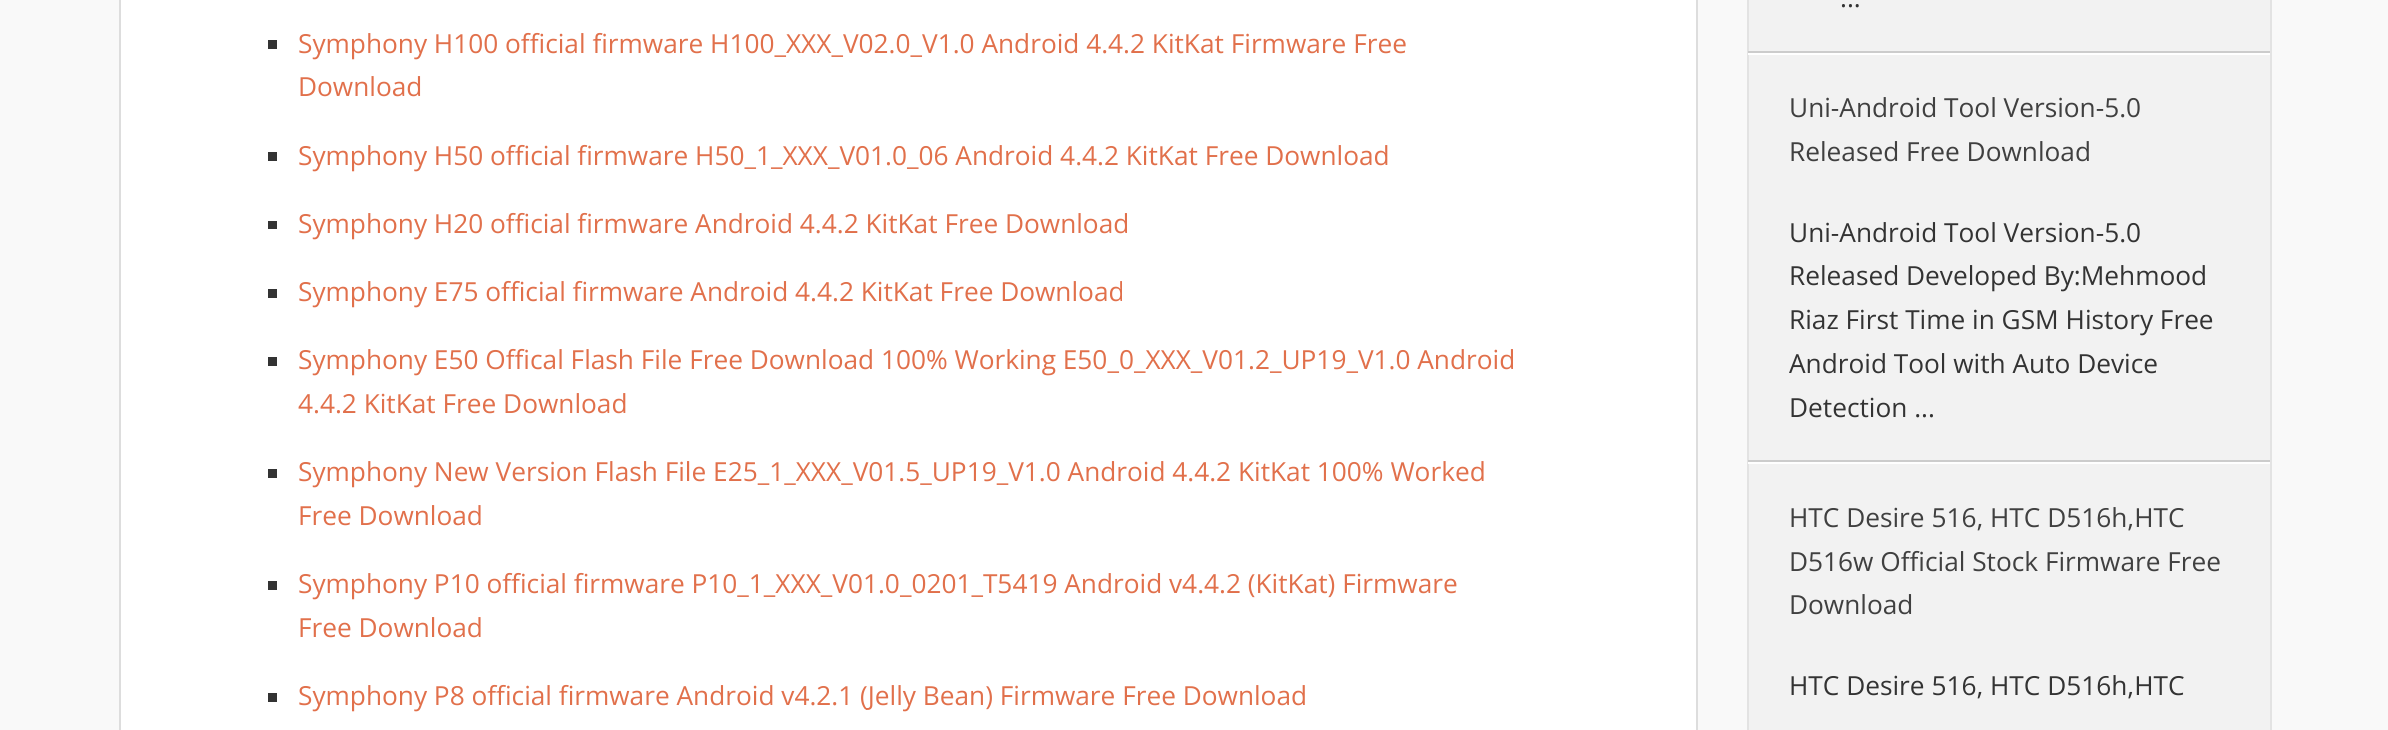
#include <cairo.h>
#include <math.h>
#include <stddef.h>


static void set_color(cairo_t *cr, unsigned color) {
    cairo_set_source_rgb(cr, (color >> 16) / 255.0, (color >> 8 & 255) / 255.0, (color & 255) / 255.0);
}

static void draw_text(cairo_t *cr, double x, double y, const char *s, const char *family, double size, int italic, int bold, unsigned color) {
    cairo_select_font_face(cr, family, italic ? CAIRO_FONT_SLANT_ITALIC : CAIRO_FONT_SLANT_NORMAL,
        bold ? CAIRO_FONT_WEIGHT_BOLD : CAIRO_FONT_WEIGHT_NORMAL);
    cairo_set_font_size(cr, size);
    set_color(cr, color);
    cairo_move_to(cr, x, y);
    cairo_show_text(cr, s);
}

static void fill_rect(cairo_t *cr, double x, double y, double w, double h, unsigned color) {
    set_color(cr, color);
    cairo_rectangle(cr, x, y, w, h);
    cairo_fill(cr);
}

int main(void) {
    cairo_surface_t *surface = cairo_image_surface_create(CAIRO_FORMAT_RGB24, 2388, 730);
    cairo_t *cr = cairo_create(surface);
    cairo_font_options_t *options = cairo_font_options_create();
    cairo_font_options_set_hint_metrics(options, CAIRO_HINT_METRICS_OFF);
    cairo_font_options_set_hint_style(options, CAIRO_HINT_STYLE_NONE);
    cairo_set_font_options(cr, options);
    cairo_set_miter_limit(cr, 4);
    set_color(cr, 0xF9F9F9);
    cairo_paint(cr);
    fill_rect(cr, 121, 0, 1575, 730, 0xFFFFFF);
    fill_rect(cr, 1696, 0, 2, 730, 0xDDDDDD);
    fill_rect(cr, 119, 0, 2, 730, 0xDDDDDD);
    fill_rect(cr, 268, 40, 9, 9, 0x333333);
    draw_text(cr, 298, 53, "Symphony H100 official firmware H100_XXX_V02.0_V1.0 Android 4.4.2 KitKat Firmware Free", "Open Sans", 26.25, 0, 0, 0xE1704B);
    draw_text(cr, 298, 96, "Download", "Open Sans", 26.25, 0, 0, 0xE1704B);
    fill_rect(cr, 268, 152, 9, 9, 0x333333);
    draw_text(cr, 298, 165, "Symphony H50 official firmware H50_1_XXX_V01.0_06 Android 4.4.2 KitKat Free Download", "Open Sans", 26.25, 0, 0, 0xE1704B);
    fill_rect(cr, 268, 221, 9, 8, 0x333333);
    draw_text(cr, 298, 233, "Symphony H20 official firmware Android 4.4.2 KitKat Free Download", "Open Sans", 26.25, 0, 0, 0xE1704B);
    fill_rect(cr, 268, 289, 9, 9, 0x333333);
    draw_text(cr, 298, 301, "Symphony E75 official firmware Android 4.4.2 KitKat Free Download", "Open Sans", 26.25, 0, 0, 0xE1704B);
    fill_rect(cr, 268, 357, 9, 9, 0x333333);
    draw_text(cr, 298, 369, "Symphony E50 Offical Flash File Free Download 100% Working E50_0_XXX_V01.2_UP19_V1.0 Android", "Open Sans", 26.25, 0, 0, 0xE1704B);
    draw_text(cr, 298, 413, "4.4.2 KitKat Free Download", "Open Sans", 26.25, 0, 0, 0xE1704B);
    fill_rect(cr, 268, 469, 9, 9, 0x333333);
    draw_text(cr, 298, 481, "Symphony New Version Flash File E25_1_XXX_V01.5_UP19_V1.0 Android 4.4.2 KitKat 100% Worked", "Open Sans", 26.25, 0, 0, 0xE1704B);
    draw_text(cr, 298, 525, "Free Download", "Open Sans", 26.25, 0, 0, 0xE1704B);
    fill_rect(cr, 268, 581, 9, 9, 0x333333);
    draw_text(cr, 298, 593, "Symphony P10 official firmware P10_1_XXX_V01.0_0201_T5419 Android v4.4.2 (KitKat) Firmware", "Open Sans", 26.25, 0, 0, 0xE1704B);
    draw_text(cr, 298, 637, "Free Download", "Open Sans", 26.25, 0, 0, 0xE1704B);
    fill_rect(cr, 268, 693, 9, 9, 0x333333);
    draw_text(cr, 298, 705, "Symphony P8 official firmware Android v4.2.1 (Jelly Bean) Firmware Free Download", "Open Sans", 26.25, 0, 0, 0xE1704B);
    set_color(cr, 0xF2F2F2);
    cairo_rectangle(cr, 1748, -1, 523, 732);
    cairo_fill_preserve(cr);
    set_color(cr, 0xE3E3E3);
    cairo_stroke(cr);
    fill_rect(cr, 1748, 51, 522, 2, 0xCCCCCC);
    draw_text(cr, 1840, 7, "...", "Open Sans", 26.25, 0, 0, 0x333333);
    fill_rect(cr, 1748, 53, 522, 2, 0xFFFFFF);
    fill_rect(cr, 1748, 460, 522, 2, 0xCCCCCC);
    draw_text(cr, 1789, 117, "Uni-Android Tool Version-5.0", "Open Sans", 26.25, 0, 0, 0x404040);
    draw_text(cr, 1789, 161, "Released Free Download", "Open Sans", 26.25, 0, 0, 0x404040);
    draw_text(cr, 1789, 242, "Uni-Android Tool Version-5.0", "Open Sans", 26.25, 0, 0, 0x333333);
    draw_text(cr, 1789, 285, "Released Developed By:Mehmood", "Open Sans", 26.25, 0, 0, 0x333333);
    draw_text(cr, 1789, 329, "Riaz First Time in GSM History Free", "Open Sans", 26.25, 0, 0, 0x333333);
    draw_text(cr, 1789, 373, "Android Tool with Auto Device", "Open Sans", 26.25, 0, 0, 0x333333);
    draw_text(cr, 1789, 417, "Detection ...", "Open Sans", 26.25, 0, 0, 0x333333);
    fill_rect(cr, 1748, 462, 522, 2, 0xFFFFFF);
    draw_text(cr, 1789, 527, "HTC Desire 516, HTC D516h,HTC", "Open Sans", 26.25, 0, 0, 0x404040);
    draw_text(cr, 1789, 571, "D516w Official Stock Firmware Free", "Open Sans", 26.25, 0, 0, 0x404040);
    draw_text(cr, 1789, 614, "Download", "Open Sans", 26.25, 0, 0, 0x404040);
    draw_text(cr, 1789, 695, "HTC Desire 516, HTC D516h,HTC", "Open Sans", 26.25, 0, 0, 0x333333);
    cairo_surface_write_to_png(surface, "output.png");
    cairo_font_options_destroy(options);
    cairo_destroy(cr);
    cairo_surface_destroy(surface);
    return 0;
}
